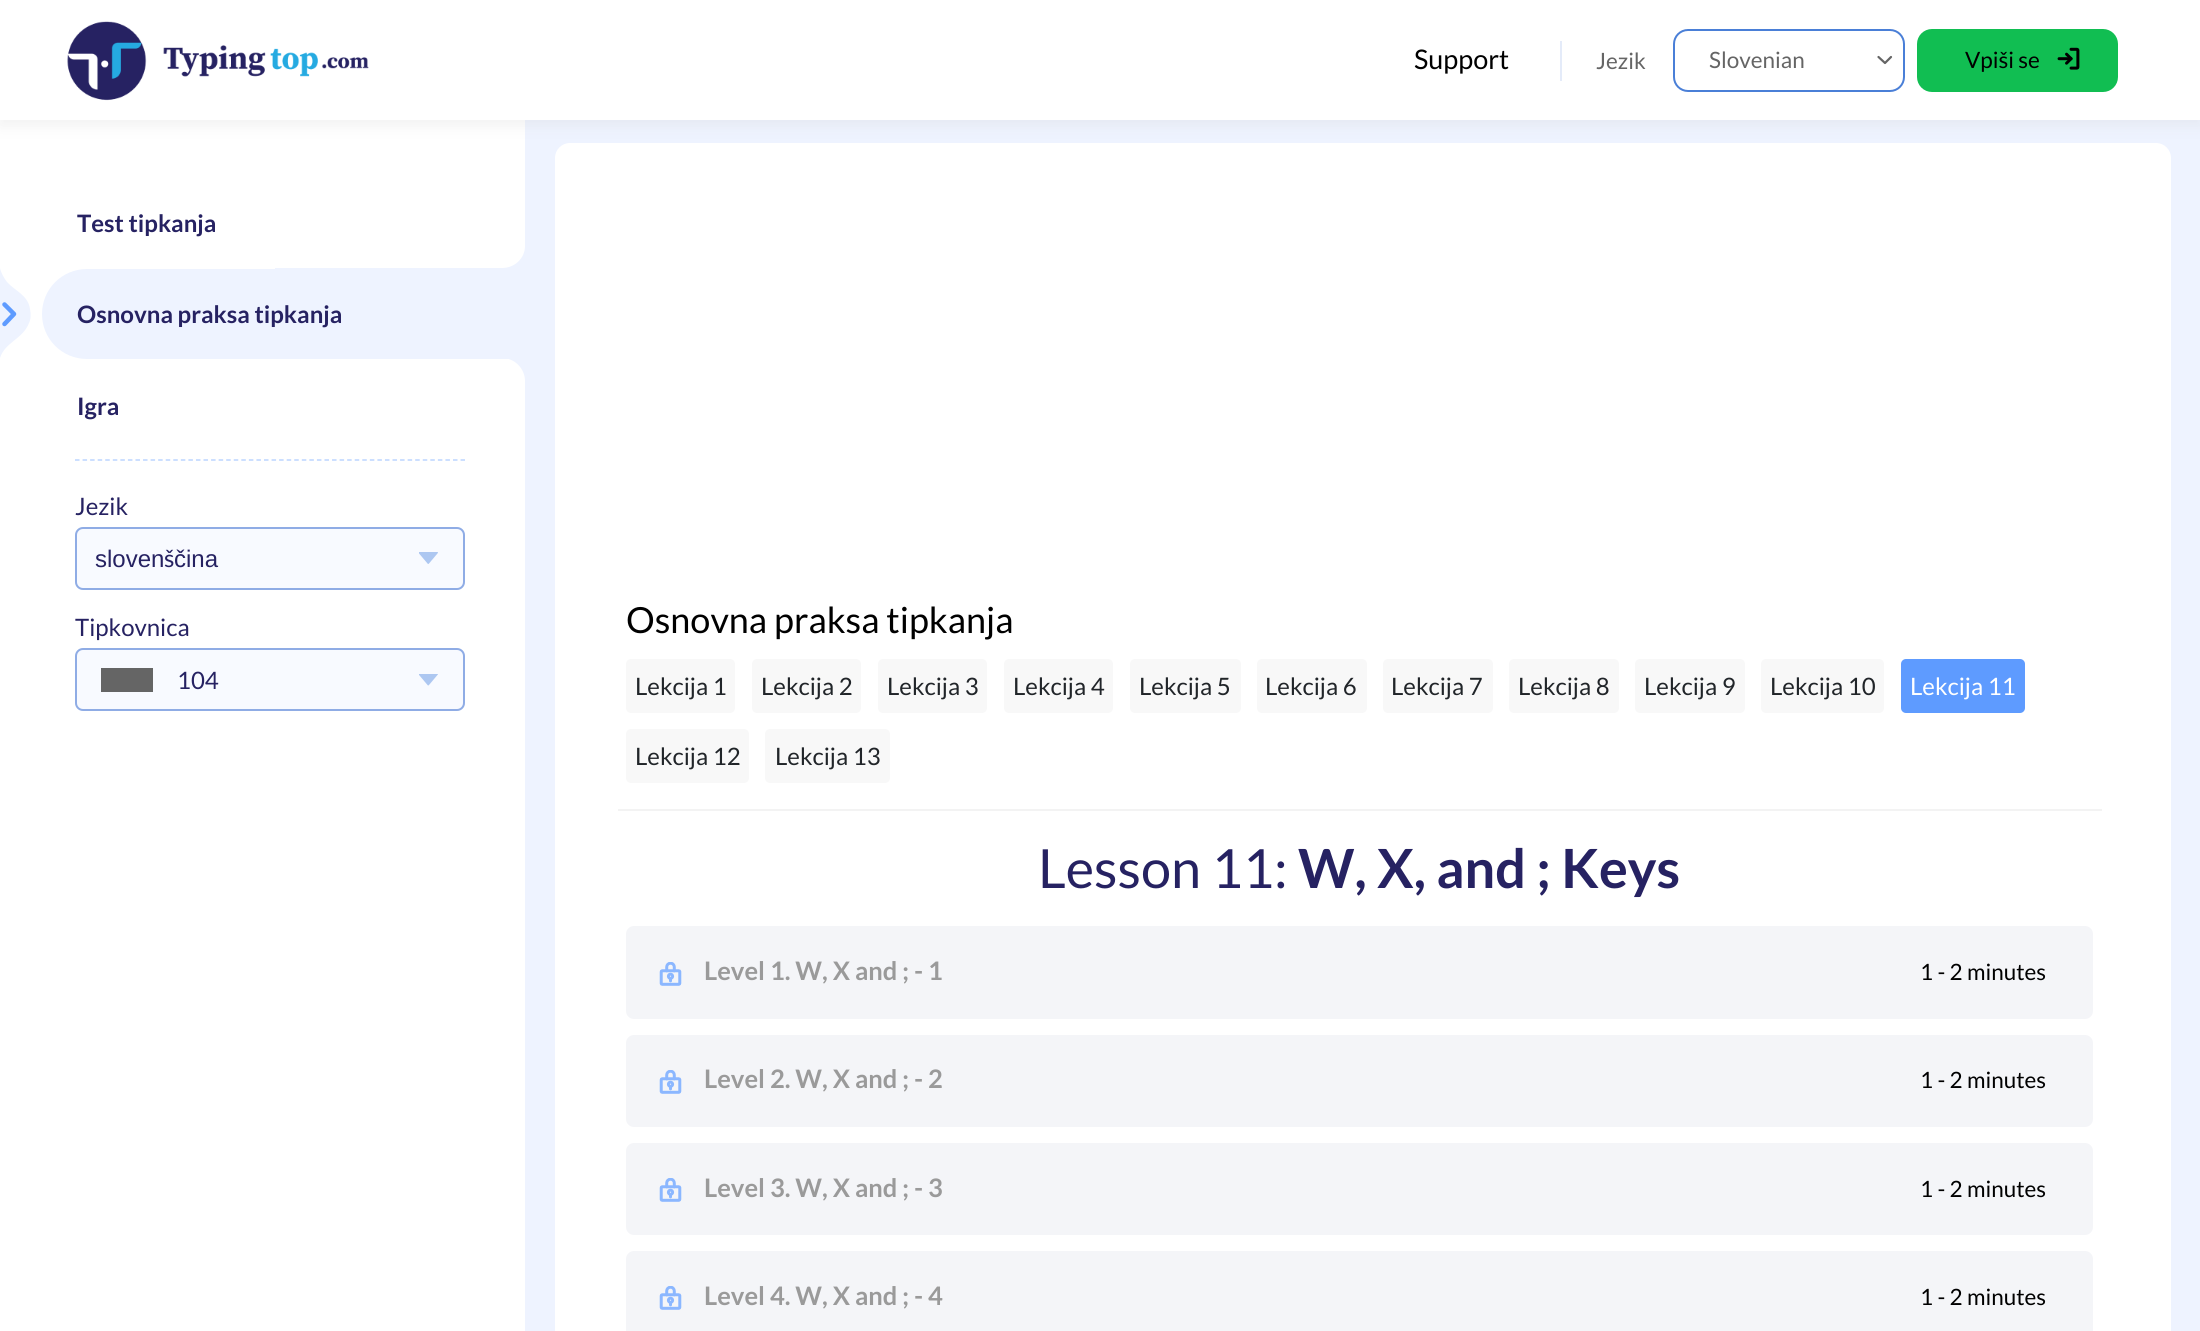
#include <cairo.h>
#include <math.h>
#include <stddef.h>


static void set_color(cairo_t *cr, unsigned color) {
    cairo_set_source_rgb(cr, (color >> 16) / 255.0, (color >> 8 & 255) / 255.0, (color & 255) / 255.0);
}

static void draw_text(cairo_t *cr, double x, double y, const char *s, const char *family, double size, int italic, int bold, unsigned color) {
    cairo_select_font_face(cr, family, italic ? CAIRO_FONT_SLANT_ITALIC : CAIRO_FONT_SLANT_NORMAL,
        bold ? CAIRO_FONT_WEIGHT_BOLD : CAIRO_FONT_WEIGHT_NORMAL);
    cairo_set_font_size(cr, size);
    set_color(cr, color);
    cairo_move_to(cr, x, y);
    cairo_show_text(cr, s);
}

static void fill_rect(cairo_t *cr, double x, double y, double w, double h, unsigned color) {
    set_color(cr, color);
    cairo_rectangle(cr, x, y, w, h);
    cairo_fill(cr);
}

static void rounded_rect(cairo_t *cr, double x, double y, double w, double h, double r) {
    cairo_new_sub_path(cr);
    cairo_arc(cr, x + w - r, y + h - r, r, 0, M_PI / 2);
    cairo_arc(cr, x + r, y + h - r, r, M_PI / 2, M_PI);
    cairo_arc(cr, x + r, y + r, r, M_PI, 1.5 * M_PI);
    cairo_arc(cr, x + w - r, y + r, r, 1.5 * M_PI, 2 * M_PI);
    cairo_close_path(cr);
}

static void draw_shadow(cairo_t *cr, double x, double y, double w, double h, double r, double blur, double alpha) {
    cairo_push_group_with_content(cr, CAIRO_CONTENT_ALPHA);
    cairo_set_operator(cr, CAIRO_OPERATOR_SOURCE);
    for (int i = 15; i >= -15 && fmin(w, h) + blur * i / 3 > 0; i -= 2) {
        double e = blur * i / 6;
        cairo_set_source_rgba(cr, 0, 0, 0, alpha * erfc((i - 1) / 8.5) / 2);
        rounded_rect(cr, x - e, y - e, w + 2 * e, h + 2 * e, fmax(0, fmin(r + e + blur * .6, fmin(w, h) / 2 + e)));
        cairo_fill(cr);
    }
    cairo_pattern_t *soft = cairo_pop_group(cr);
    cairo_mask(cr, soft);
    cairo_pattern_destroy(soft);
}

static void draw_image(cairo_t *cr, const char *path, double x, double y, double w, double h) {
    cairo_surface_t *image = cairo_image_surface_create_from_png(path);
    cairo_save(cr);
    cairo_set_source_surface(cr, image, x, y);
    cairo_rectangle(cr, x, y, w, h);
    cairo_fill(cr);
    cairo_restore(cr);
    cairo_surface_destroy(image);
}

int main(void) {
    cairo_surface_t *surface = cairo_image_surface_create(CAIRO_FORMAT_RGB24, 2200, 1331);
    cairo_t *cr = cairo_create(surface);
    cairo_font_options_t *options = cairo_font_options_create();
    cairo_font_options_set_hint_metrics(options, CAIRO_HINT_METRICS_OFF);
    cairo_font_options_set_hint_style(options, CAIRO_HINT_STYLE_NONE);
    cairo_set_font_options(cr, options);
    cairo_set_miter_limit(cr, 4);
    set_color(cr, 0xFFFFFF);
    cairo_paint(cr);
    fill_rect(cr, 525, 120, 1675, 1211, 0xEEF3FF);
    set_color(cr, 0xFFFFFF);
    rounded_rect(cr, 555, 143, 1616, 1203, 15);
    cairo_fill(cr);
    set_color(cr, 0xCACACA);
    draw_shadow(cr, 0, 6, 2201, 120, 0, 7.5, 0.25);
    fill_rect(cr, 0, 0, 2200, 120, 0xFFFFFF);
    draw_image(cr, "assets/img1.png", 67, 21, 302, 80);
    draw_text(cr, 1414, 69, "Support", "Lato", 27, 0, 0, 0x000000);
    fill_rect(cr, 1560, 41, 2, 40, 0xE4EBF9);
    draw_text(cr, 1596, 69, "Jezik", "Lato", 22.5, 0, 0, 0x656565);
    cairo_new_path(cr);
    cairo_move_to(cr, 1891, 57);
    cairo_line_to(cr, 1885, 63);
    cairo_line_to(cr, 1878.5, 57);
    cairo_set_line_width(cr, 2.2);
    cairo_set_line_cap(cr, CAIRO_LINE_CAP_ROUND);
    cairo_set_line_join(cr, CAIRO_LINE_JOIN_ROUND);
    cairo_stroke(cr);
    rounded_rect(cr, 1674, 30, 230, 61, 14);
    set_color(cr, 0x4A7FD7);
    cairo_set_line_width(cr, 2);
    cairo_set_line_cap(cr, CAIRO_LINE_CAP_BUTT);
    cairo_set_line_join(cr, CAIRO_LINE_JOIN_MITER);
    cairo_stroke(cr);
    draw_text(cr, 1709, 68, "Slovenian", "Lato", 22.5, 0, 0, 0x656565);
    set_color(cr, 0x11BE52);
    rounded_rect(cr, 1918, 30, 199, 61, 14);
    cairo_fill_preserve(cr);
    cairo_stroke(cr);
    draw_text(cr, 1965, 68, "Vpiši se", "Lato", 22.5, 0, 0, 0x000000);
    draw_image(cr, "assets/img2.png", 2057, 47, 23, 23);
    draw_text(cr, 77, 232, "Test tipkanja", "Lato", 24, 0, 1, 0x262262);
    set_color(cr, 0xEEF3FF);
    cairo_new_path(cr);
    cairo_move_to(cr, 275, 268);
    cairo_line_to(cr, 275, 281);
    cairo_line_to(cr, 514, 281);
    cairo_curve_to(cr, 527, 281, 537, 271, 537, 258);
    cairo_line_to(cr, 537, 191);
    cairo_line_to(cr, 525, 191);
    cairo_line_to(cr, 525, 246);
    cairo_curve_to(cr, 525, 258, 515, 268, 502, 268);
    cairo_close_path(cr);
    cairo_fill(cr);
    cairo_set_fill_rule(cr, CAIRO_FILL_RULE_EVEN_ODD);
    cairo_new_path(cr);
    cairo_move_to(cr, 0, 358);
    cairo_curve_to(cr, 5, 342, 23, 339, 29, 323);
    cairo_curve_to(cr, 31, 319, 31, 314, 30, 309);
    cairo_curve_to(cr, 28, 295, 15, 291, 7, 282);
    cairo_curve_to(cr, 4, 278, 1, 273, 0, 268);
    cairo_close_path(cr);
    cairo_fill(cr);
    cairo_new_path(cr);
    cairo_move_to(cr, 4.5, 304.5);
    cairo_line_to(cr, 14, 314);
    cairo_line_to(cr, 4.5, 324);
    set_color(cr, 0x5E9BFF);
    cairo_set_line_width(cr, 4.5);
    cairo_set_line_cap(cr, CAIRO_LINE_CAP_ROUND);
    cairo_set_line_join(cr, CAIRO_LINE_JOIN_ROUND);
    cairo_stroke(cr);
    set_color(cr, 0xEEF3FF);
    cairo_new_path(cr);
    cairo_move_to(cr, 87, 269);
    cairo_line_to(cr, 525, 269);
    cairo_line_to(cr, 525, 359);
    cairo_line_to(cr, 87, 359);
    cairo_curve_to(cr, 62, 359, 42, 339, 42, 314);
    cairo_curve_to(cr, 42, 289, 62, 269, 87, 269);
    cairo_close_path(cr);
    cairo_fill(cr);
    draw_text(cr, 77, 323, "Osnovna praksa tipkanja", "Lato", 24, 0, 1, 0x262262);
    set_color(cr, 0xEEF3FF);
    cairo_set_fill_rule(cr, CAIRO_FILL_RULE_WINDING);
    cairo_new_path(cr);
    cairo_move_to(cr, 275, 347);
    cairo_line_to(cr, 275, 358);
    cairo_line_to(cr, 502, 358);
    cairo_curve_to(cr, 515, 358, 525, 369, 525, 381);
    cairo_line_to(cr, 525, 437);
    cairo_line_to(cr, 537, 437);
    cairo_line_to(cr, 537, 370);
    cairo_curve_to(cr, 537, 357, 527, 347, 514, 347);
    cairo_close_path(cr);
    cairo_fill(cr);
    draw_text(cr, 77, 415, "Igra", "Lato", 24, 0, 1, 0x262262);
    cairo_new_path(cr);
    cairo_move_to(cr, 75, 460);
    cairo_line_to(cr, 465, 460);
    set_color(cr, 0xBBD4FF);
    cairo_set_line_width(cr, 1.5);
    cairo_set_line_cap(cr, CAIRO_LINE_CAP_BUTT);
    cairo_set_line_join(cr, CAIRO_LINE_JOIN_MITER);
    cairo_set_dash(cr, (double[]){4.5, 3.06}, 2, 0);
    cairo_stroke(cr);
    draw_text(cr, 75, 515, "Jezik", "Lato", 24, 0, 0, 0x262262);
    set_color(cr, 0xF8FAFF);
    rounded_rect(cr, 75, 527, 390, 63, 8);
    cairo_fill(cr);
    draw_image(cr, "assets/img3.png", 419, 552, 19, 12);
    rounded_rect(cr, 76, 528, 388, 61, 7);
    set_color(cr, 0x8FACE5);
    cairo_set_line_width(cr, 2);
    cairo_set_dash(cr, NULL, 0, 0);
    cairo_stroke(cr);
    draw_text(cr, 95, 567, "sloven", "Liberation Sans", 24, 0, 0, 0x262262);
    draw_text(cr, 164, 567, "š", "Lato", 24, 0, 0, 0x262262);
    draw_text(cr, 174, 567, "čina", "Liberation Sans", 24, 0, 0, 0x262262);
    draw_text(cr, 75, 636, "Tipkovnica", "Lato", 24, 0, 0, 0x262262);
    set_color(cr, 0xF8FAFF);
    rounded_rect(cr, 75, 648, 390, 63, 8);
    cairo_fill(cr);
    draw_image(cr, "assets/img4.png", 419, 674, 19, 12);
    fill_rect(cr, 101, 668, 52, 24, 0x656565);
    rounded_rect(cr, 76, 649, 388, 61, 7);
    set_color(cr, 0x8FACE5);
    cairo_stroke(cr);
    draw_text(cr, 177, 689, "104", "Lato", 24, 0, 0, 0x262262);
    draw_text(cr, 626, 633, "Osnovna praksa tipkanja", "Lato", 36, 0, 0, 0x000000);
    fill_rect(cr, 618, 809, 1484, 2, 0xF3F3F3);
    set_color(cr, 0xF8F8F8);
    rounded_rect(cr, 626, 659, 109, 54, 5);
    cairo_fill(cr);
    draw_text(cr, 635, 695, "Lekcija 1", "Lato", 24, 0, 0, 0x212529);
    set_color(cr, 0xF8F8F8);
    rounded_rect(cr, 752, 659, 109, 54, 5);
    cairo_fill(cr);
    draw_text(cr, 761, 695, "Lekcija 2", "Lato", 24, 0, 0, 0x212529);
    set_color(cr, 0xF8F8F8);
    rounded_rect(cr, 878, 659, 109, 54, 5);
    cairo_fill(cr);
    draw_text(cr, 887, 695, "Lekcija 3", "Lato", 24, 0, 0, 0x212529);
    set_color(cr, 0xF8F8F8);
    rounded_rect(cr, 1004, 659, 109, 54, 5);
    cairo_fill(cr);
    draw_text(cr, 1013, 695, "Lekcija 4", "Lato", 24, 0, 0, 0x212529);
    set_color(cr, 0xF8F8F8);
    rounded_rect(cr, 1130, 659, 111, 54, 5);
    cairo_fill(cr);
    draw_text(cr, 1139, 695, "Lekcija 5", "Lato", 24, 0, 0, 0x212529);
    set_color(cr, 0xF8F8F8);
    rounded_rect(cr, 1257, 659, 110, 54, 5);
    cairo_fill(cr);
    draw_text(cr, 1265, 695, "Lekcija 6", "Lato", 24, 0, 0, 0x212529);
    set_color(cr, 0xF8F8F8);
    rounded_rect(cr, 1383, 659, 110, 54, 5);
    cairo_fill(cr);
    draw_text(cr, 1391, 695, "Lekcija 7", "Lato", 24, 0, 0, 0x212529);
    set_color(cr, 0xF8F8F8);
    rounded_rect(cr, 1509, 659, 110, 54, 5);
    cairo_fill(cr);
    draw_text(cr, 1518, 695, "Lekcija 8", "Lato", 24, 0, 0, 0x212529);
    set_color(cr, 0xF8F8F8);
    rounded_rect(cr, 1635, 659, 110, 54, 5);
    cairo_fill(cr);
    draw_text(cr, 1644, 695, "Lekcija 9", "Lato", 24, 0, 0, 0x212529);
    set_color(cr, 0xF8F8F8);
    rounded_rect(cr, 1761, 659, 123, 54, 5);
    cairo_fill(cr);
    draw_text(cr, 1770, 695, "Lekcija 10", "Lato", 24, 0, 0, 0x212529);
    set_color(cr, 0x5E9BFF);
    rounded_rect(cr, 1901, 659, 124, 54, 5);
    cairo_fill(cr);
    draw_text(cr, 1910, 695, "Lekcija 11", "Lato", 24, 0, 0, 0xFFFFFF);
    set_color(cr, 0xF8F8F8);
    rounded_rect(cr, 626, 729, 123, 54, 5);
    cairo_fill(cr);
    draw_text(cr, 635, 765, "Lekcija 12", "Lato", 24, 0, 0, 0x212529);
    set_color(cr, 0xF8F8F8);
    rounded_rect(cr, 765, 729, 125, 54, 5);
    cairo_fill(cr);
    draw_text(cr, 775, 765, "Lekcija 13", "Lato", 24, 0, 0, 0x212529);
    draw_text(cr, 1038, 888, "Lesson 11:", "Lato", 54, 0, 0, 0x262262);
    draw_text(cr, 1298, 888, "W, X, and ; Keys", "Lato", 54, 0, 1, 0x262262);
    set_color(cr, 0xF4F5F8);
    rounded_rect(cr, 627.5, 927.5, 1464, 90, 6.5);
    cairo_fill_preserve(cr);
    cairo_set_line_width(cr, 3);
    cairo_stroke(cr);
    draw_image(cr, "assets/img5.png", 659, 962, 23, 24);
    draw_text(cr, 704, 980, "Level 1. W, X and ; - 1", "Lato", 25.5, 0, 1, 0x9A9A9A);
    draw_text(cr, 1920, 980, "1 - 2 minutes", "Lato", 22.5, 0, 0, 0x000000);
    set_color(cr, 0xF4F5F8);
    rounded_rect(cr, 627.5, 1036.5, 1464, 89, 6.5);
    cairo_fill_preserve(cr);
    cairo_stroke(cr);
    draw_image(cr, "assets/img5.png", 659, 1070, 23, 24);
    draw_text(cr, 704, 1088, "Level 2. W, X and ; - 2", "Lato", 25.5, 0, 1, 0x9A9A9A);
    draw_text(cr, 1920, 1088, "1 - 2 minutes", "Lato", 22.5, 0, 0, 0x000000);
    set_color(cr, 0xF4F5F8);
    rounded_rect(cr, 627.5, 1144.5, 1464, 89, 6.5);
    cairo_fill_preserve(cr);
    cairo_stroke(cr);
    draw_image(cr, "assets/img5.png", 659, 1178, 23, 24);
    draw_text(cr, 704, 1197, "Level 3. W, X and ; - 3", "Lato", 25.5, 0, 1, 0x9A9A9A);
    draw_text(cr, 1920, 1197, "1 - 2 minutes", "Lato", 22.5, 0, 0, 0x000000);
    set_color(cr, 0xF4F5F8);
    rounded_rect(cr, 627.5, 1252.5, 1464, 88, 6.5);
    cairo_fill_preserve(cr);
    cairo_stroke(cr);
    draw_image(cr, "assets/img5.png", 659, 1286, 23, 24);
    draw_text(cr, 704, 1305, "Level 4. W, X and ; - 4", "Lato", 25.5, 0, 1, 0x9A9A9A);
    draw_text(cr, 1920, 1305, "1 - 2 minutes", "Lato", 22.5, 0, 0, 0x000000);
    cairo_surface_write_to_png(surface, "output.png");
    cairo_font_options_destroy(options);
    cairo_destroy(cr);
    cairo_surface_destroy(surface);
    return 0;
}
